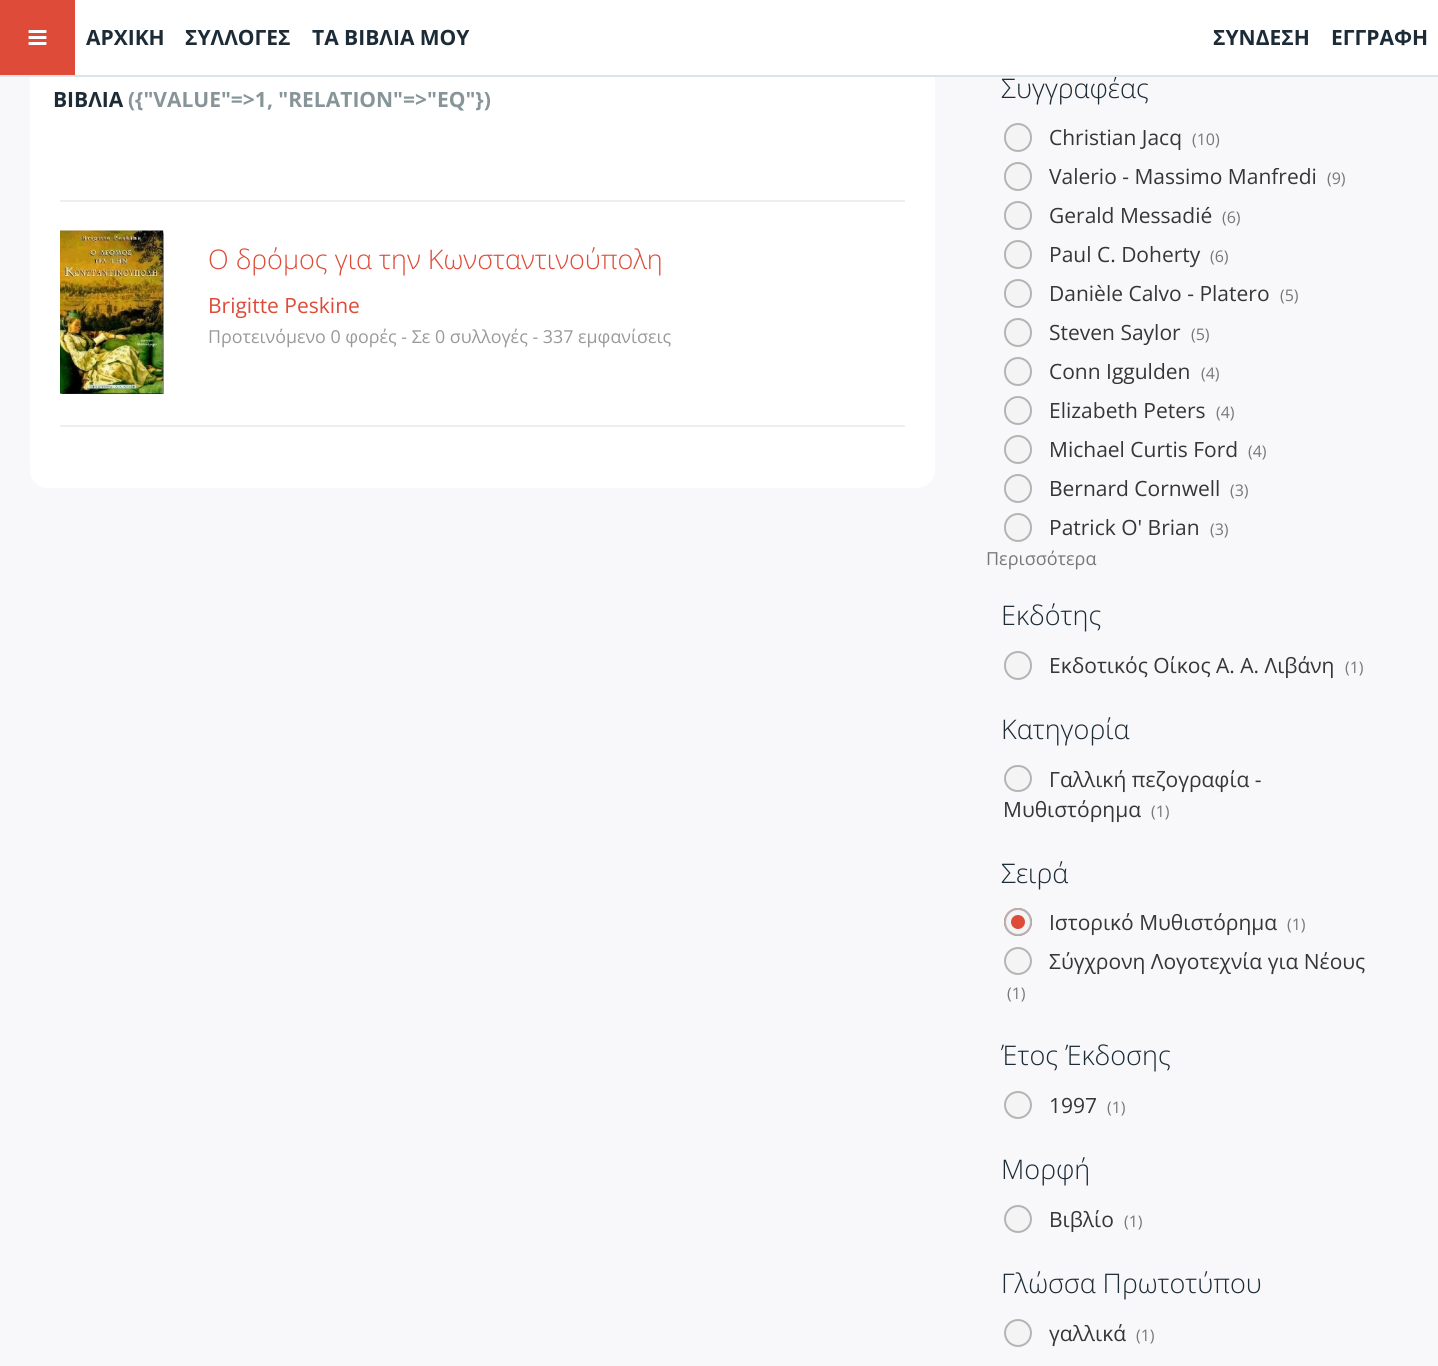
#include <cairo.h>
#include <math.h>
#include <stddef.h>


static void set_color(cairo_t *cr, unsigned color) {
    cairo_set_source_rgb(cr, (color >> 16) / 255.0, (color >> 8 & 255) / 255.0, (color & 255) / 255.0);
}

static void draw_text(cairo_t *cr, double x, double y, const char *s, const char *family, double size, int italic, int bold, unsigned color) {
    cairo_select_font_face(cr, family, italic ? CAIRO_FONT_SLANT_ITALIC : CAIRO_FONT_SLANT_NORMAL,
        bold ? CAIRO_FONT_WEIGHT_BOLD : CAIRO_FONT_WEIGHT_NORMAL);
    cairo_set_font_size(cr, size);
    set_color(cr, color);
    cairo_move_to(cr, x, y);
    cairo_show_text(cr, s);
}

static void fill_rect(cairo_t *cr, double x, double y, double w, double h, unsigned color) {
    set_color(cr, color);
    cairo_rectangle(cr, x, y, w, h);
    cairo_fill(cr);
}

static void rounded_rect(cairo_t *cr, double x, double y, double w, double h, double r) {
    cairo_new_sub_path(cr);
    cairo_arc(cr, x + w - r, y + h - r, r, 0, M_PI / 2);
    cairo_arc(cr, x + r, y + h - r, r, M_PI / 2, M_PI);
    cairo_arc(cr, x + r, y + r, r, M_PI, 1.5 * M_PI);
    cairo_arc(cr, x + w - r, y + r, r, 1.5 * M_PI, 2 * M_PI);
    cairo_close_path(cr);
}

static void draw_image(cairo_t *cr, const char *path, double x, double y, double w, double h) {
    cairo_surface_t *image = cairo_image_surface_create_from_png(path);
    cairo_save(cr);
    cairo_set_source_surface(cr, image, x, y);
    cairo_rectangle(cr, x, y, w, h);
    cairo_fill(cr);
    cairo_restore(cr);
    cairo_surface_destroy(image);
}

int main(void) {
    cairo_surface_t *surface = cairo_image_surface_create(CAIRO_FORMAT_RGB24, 1438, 1366);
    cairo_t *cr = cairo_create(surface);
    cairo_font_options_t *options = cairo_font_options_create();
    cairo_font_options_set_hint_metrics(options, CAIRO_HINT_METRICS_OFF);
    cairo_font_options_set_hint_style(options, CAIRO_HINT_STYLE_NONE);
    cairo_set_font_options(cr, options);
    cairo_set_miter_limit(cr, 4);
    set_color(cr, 0xF8F8FB);
    cairo_paint(cr);
    set_color(cr, 0xFFFFFF);
    rounded_rect(cr, 30, 51, 905, 437, 18);
    cairo_fill(cr);
    fill_rect(cr, 75, 0, 1363, 75, 0xFFFFFF);
    draw_text(cr, 1001, 98, "Συγγραφέας", "Open Sans Light", 27, 0, 0, 0x1C2B36);
    fill_rect(cr, 0, 75, 1438, 2, 0xDAE5E8);
    fill_rect(cr, 0, 0, 75, 75, 0xDE4B39);
    draw_image(cr, "assets/img1.png", 28, 30, 19, 15);
    draw_text(cr, 86, 45, "ΑΡΧΙΚΗ", "Open Sans", 21, 0, 1, 0x1C2B36);
    draw_text(cr, 185, 45, "ΣΥΛΛΟΓΕΣ", "Open Sans", 21, 0, 1, 0x1C2B36);
    draw_text(cr, 312, 45, "ΤΑ ΒΙΒΛΙΑ ΜΟΥ", "Open Sans", 21, 0, 1, 0x1C2B36);
    draw_text(cr, 1213, 45, "ΣΥΝΔΕΣΗ", "Open Sans", 21, 0, 1, 0x1C2B36);
    draw_text(cr, 1331, 45, "ΕΓΓΡΑΦΗ", "Open Sans", 21, 0, 1, 0x1C2B36);
    draw_text(cr, 53, 107, "ΒΙΒΛΙΑ", "Open Sans", 21, 0, 1, 0x1C2B36);
    draw_text(cr, 128, 107, "({\"VALUE\"=>1, \"RELATION\"=>\"EQ\"})", "Open Sans", 21, 0, 1, 0x879599);
    fill_rect(cr, 60, 200, 845, 2, 0xEEEEEE);
    draw_image(cr, "assets/img2.png", 60, 230, 104, 164);
    draw_text(cr, 208, 269, "Ο δρόμος για την Κωνσταντινούπολη", "Open Sans Light", 27, 0, 0, 0xDE4B39);
    draw_text(cr, 208, 313, "Brigitte Peskine", "Open Sans", 21, 0, 0, 0xDE4B39);
    draw_text(cr, 208, 343, "Προτεινόμενο 0 φορές - Σε 0 συλλογές - 337 εμφανίσεις", "Open Sans", 17.85, 0, 0, 0x999999);
    fill_rect(cr, 60, 425, 845, 2, 0xEEEEEE);
    set_color(cr, 0xF4F4F4);
    rounded_rect(cr, 1005, 124, 26, 27, 13);
    cairo_fill_preserve(cr);
    set_color(cr, 0xB4B4B4);
    cairo_stroke(cr);
    draw_text(cr, 1049, 145, "Christian Jacq", "Open Sans", 21, 0, 0, 0x363636);
    draw_text(cr, 1192, 145, "(10)", "Open Sans", 16, 0, 0, 0x777777);
    set_color(cr, 0xF4F4F4);
    rounded_rect(cr, 1005, 163, 26, 27, 13);
    cairo_fill_preserve(cr);
    set_color(cr, 0xB4B4B4);
    cairo_stroke(cr);
    draw_text(cr, 1049, 184, "Valerio - Massimo Manfredi", "Open Sans", 21, 0, 0, 0x363636);
    draw_text(cr, 1327, 184, "(9)", "Open Sans", 16, 0, 0, 0x777777);
    set_color(cr, 0xF4F4F4);
    rounded_rect(cr, 1005, 202, 26, 27, 13);
    cairo_fill_preserve(cr);
    set_color(cr, 0xB4B4B4);
    cairo_stroke(cr);
    draw_text(cr, 1049, 223, "Gerald Messadié", "Open Sans", 21, 0, 0, 0x363636);
    draw_text(cr, 1222, 223, "(6)", "Open Sans", 16, 0, 0, 0x777777);
    set_color(cr, 0xF4F4F4);
    rounded_rect(cr, 1005, 241, 26, 27, 13);
    cairo_fill_preserve(cr);
    set_color(cr, 0xB4B4B4);
    cairo_stroke(cr);
    draw_text(cr, 1049, 262, "Paul C. Doherty", "Open Sans", 21, 0, 0, 0x363636);
    draw_text(cr, 1210, 262, "(6)", "Open Sans", 16, 0, 0, 0x777777);
    set_color(cr, 0xF4F4F4);
    rounded_rect(cr, 1005, 280, 26, 27, 13);
    cairo_fill_preserve(cr);
    set_color(cr, 0xB4B4B4);
    cairo_stroke(cr);
    draw_text(cr, 1049, 301, "Danièle Calvo - Platero", "Open Sans", 21, 0, 0, 0x363636);
    draw_text(cr, 1280, 301, "(5)", "Open Sans", 16, 0, 0, 0x777777);
    set_color(cr, 0xF4F4F4);
    rounded_rect(cr, 1005, 319, 26, 27, 13);
    cairo_fill_preserve(cr);
    set_color(cr, 0xB4B4B4);
    cairo_stroke(cr);
    draw_text(cr, 1049, 340, "Steven Saylor", "Open Sans", 21, 0, 0, 0x363636);
    draw_text(cr, 1191, 340, "(5)", "Open Sans", 16, 0, 0, 0x777777);
    set_color(cr, 0xF4F4F4);
    rounded_rect(cr, 1005, 358, 26, 27, 13);
    cairo_fill_preserve(cr);
    set_color(cr, 0xB4B4B4);
    cairo_stroke(cr);
    draw_text(cr, 1049, 379, "Conn Iggulden", "Open Sans", 21, 0, 0, 0x363636);
    draw_text(cr, 1201, 379, "(4)", "Open Sans", 16, 0, 0, 0x777777);
    set_color(cr, 0xF4F4F4);
    rounded_rect(cr, 1005, 397, 26, 27, 13);
    cairo_fill_preserve(cr);
    set_color(cr, 0xB4B4B4);
    cairo_stroke(cr);
    draw_text(cr, 1049, 418, "Elizabeth Peters", "Open Sans", 21, 0, 0, 0x363636);
    draw_text(cr, 1216, 418, "(4)", "Open Sans", 16, 0, 0, 0x777777);
    set_color(cr, 0xF4F4F4);
    rounded_rect(cr, 1005, 436, 26, 27, 13);
    cairo_fill_preserve(cr);
    set_color(cr, 0xB4B4B4);
    cairo_stroke(cr);
    draw_text(cr, 1049, 457, "Michael Curtis Ford", "Open Sans", 21, 0, 0, 0x363636);
    draw_text(cr, 1248, 457, "(4)", "Open Sans", 16, 0, 0, 0x777777);
    set_color(cr, 0xF4F4F4);
    rounded_rect(cr, 1005, 475, 26, 27, 13);
    cairo_fill_preserve(cr);
    set_color(cr, 0xB4B4B4);
    cairo_stroke(cr);
    draw_text(cr, 1049, 496, "Bernard Cornwell", "Open Sans", 21, 0, 0, 0x363636);
    draw_text(cr, 1230, 496, "(3)", "Open Sans", 16, 0, 0, 0x777777);
    set_color(cr, 0xF4F4F4);
    rounded_rect(cr, 1005, 514, 26, 27, 13);
    cairo_fill_preserve(cr);
    set_color(cr, 0xB4B4B4);
    cairo_stroke(cr);
    draw_text(cr, 1049, 535, "Patrick O' Brian", "Open Sans", 21, 0, 0, 0x363636);
    draw_text(cr, 1210, 535, "(3)", "Open Sans", 16, 0, 0, 0x777777);
    draw_text(cr, 986, 565, "Περισσότερα", "Open Sans", 18, 0, 0, 0x777777);
    draw_text(cr, 1001, 625, "Εκδότης", "Open Sans Light", 27, 0, 0, 0x1C2B36);
    set_color(cr, 0xF4F4F4);
    rounded_rect(cr, 1005, 652, 26, 27, 13);
    cairo_fill_preserve(cr);
    set_color(cr, 0xB4B4B4);
    cairo_stroke(cr);
    draw_text(cr, 1049, 673, "Εκδοτικός Οίκος Α. Α. Λιβάνη", "Open Sans", 21, 0, 0, 0x363636);
    draw_text(cr, 1345, 673, "(1)", "Open Sans", 16, 0, 0, 0x777777);
    draw_text(cr, 1001, 739, "Κατηγορία", "Open Sans Light", 27, 0, 0, 0x1C2B36);
    set_color(cr, 0xF4F4F4);
    rounded_rect(cr, 1005, 766, 26, 25, 12.5);
    cairo_fill_preserve(cr);
    set_color(cr, 0xB4B4B4);
    cairo_stroke(cr);
    draw_text(cr, 1049, 787, "Γαλλική πεζογραφία -", "Open Sans", 21, 0, 0, 0x363636);
    draw_text(cr, 1003, 817, "Μυθιστόρημα", "Open Sans", 21, 0, 0, 0x363636);
    draw_text(cr, 1151, 817, "(1)", "Open Sans", 16, 0, 0, 0x777777);
    draw_text(cr, 1001, 883, "Σειρά", "Open Sans Light", 27, 0, 0, 0x1C2B36);
    set_color(cr, 0xDE4B39);
    cairo_new_path(cr);
    cairo_arc(cr, 1018, 922, 14, 0, 2 * M_PI);
    cairo_fill(cr);
    cairo_arc(cr, 1018, 922, 10, 0, 2 * M_PI);
    set_color(cr, 0xF4F4F4);
    cairo_set_line_width(cr, 6);
    cairo_stroke(cr);
    cairo_arc(cr, 1018, 922, 13, 0, 2 * M_PI);
    set_color(cr, 0xB4B4B4);
    cairo_set_line_width(cr, 2);
    cairo_stroke(cr);
    draw_text(cr, 1049, 930, "Ιστορικό Μυθιστόρημα", "Open Sans", 21, 0, 0, 0x363636);
    draw_text(cr, 1287, 930, "(1)", "Open Sans", 16, 0, 0, 0x777777);
    set_color(cr, 0xF4F4F4);
    cairo_new_path(cr);
    cairo_arc(cr, 1018, 961, 13, 0, 2 * M_PI);
    cairo_fill_preserve(cr);
    set_color(cr, 0xB4B4B4);
    cairo_stroke(cr);
    draw_text(cr, 1049, 969, "Σύγχρονη Λογοτεχνία για Νέους", "Open Sans", 21, 0, 0, 0x363636);
    draw_text(cr, 1007, 999, "(1)", "Open Sans", 16, 0, 0, 0x777777);
    draw_text(cr, 1001, 1065, "Έτος Έκδοσης", "Open Sans Light", 27, 0, 0, 0x1C2B36);
    set_color(cr, 0xF4F4F4);
    cairo_new_path(cr);
    cairo_arc(cr, 1018, 1105, 13, 0, 2 * M_PI);
    cairo_fill_preserve(cr);
    set_color(cr, 0xB4B4B4);
    cairo_stroke(cr);
    draw_text(cr, 1049, 1113, "1997", "Open Sans", 21, 0, 0, 0x363636);
    draw_text(cr, 1107, 1113, "(1)", "Open Sans", 16, 0, 0, 0x777777);
    draw_text(cr, 1001, 1179, "Μορφή", "Open Sans Light", 27, 0, 0, 0x1C2B36);
    set_color(cr, 0xF4F4F4);
    cairo_new_path(cr);
    cairo_arc(cr, 1018, 1219, 13, 0, 2 * M_PI);
    cairo_fill_preserve(cr);
    set_color(cr, 0xB4B4B4);
    cairo_stroke(cr);
    draw_text(cr, 1049, 1227, "Βιβλίο", "Open Sans", 21, 0, 0, 0x363636);
    draw_text(cr, 1124, 1227, "(1)", "Open Sans", 16, 0, 0, 0x777777);
    draw_text(cr, 1001, 1293, "Γλώσσα Πρωτοτύπου", "Open Sans Light", 27, 0, 0, 0x1C2B36);
    set_color(cr, 0xF4F4F4);
    cairo_new_path(cr);
    cairo_arc(cr, 1018, 1333, 13, 0, 2 * M_PI);
    cairo_fill_preserve(cr);
    set_color(cr, 0xB4B4B4);
    cairo_stroke(cr);
    draw_text(cr, 1049, 1341, "γαλλικά", "Open Sans", 21, 0, 0, 0x363636);
    draw_text(cr, 1136, 1341, "(1)", "Open Sans", 16, 0, 0, 0x777777);
    cairo_surface_write_to_png(surface, "output.png");
    cairo_font_options_destroy(options);
    cairo_destroy(cr);
    cairo_surface_destroy(surface);
    return 0;
}
